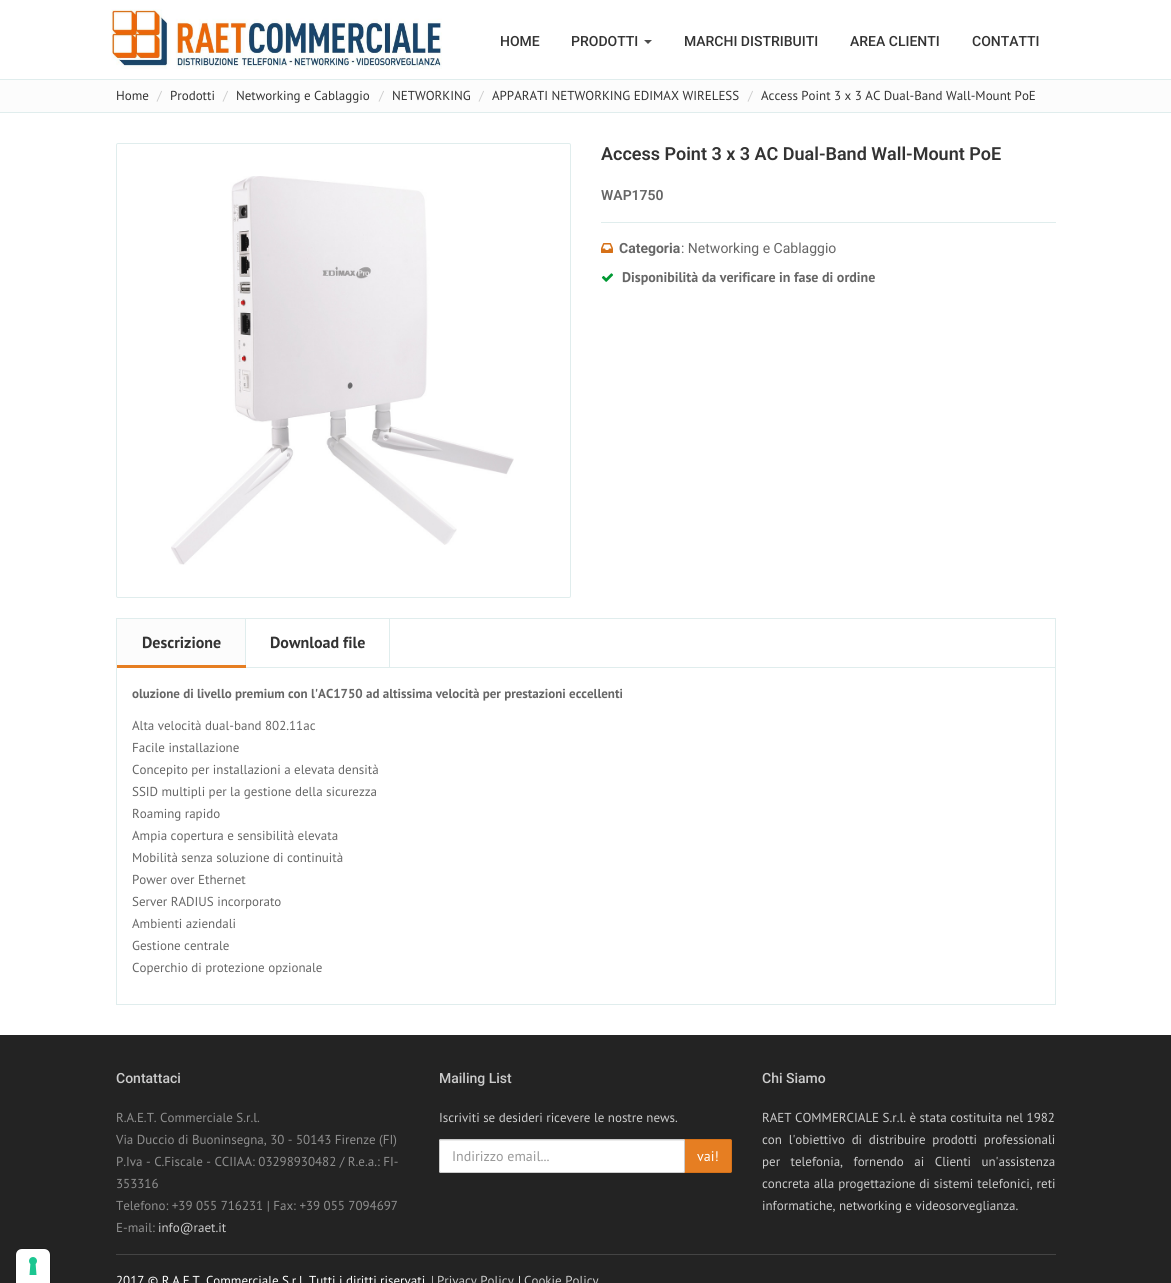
#include <cairo.h>
#include <math.h>
#include <stddef.h>


static void set_color(cairo_t *cr, unsigned color) {
    cairo_set_source_rgb(cr, (color >> 16) / 255.0, (color >> 8 & 255) / 255.0, (color & 255) / 255.0);
}

static void draw_text(cairo_t *cr, double x, double y, const char *s, const char *family, double size, int italic, int bold, unsigned color) {
    cairo_select_font_face(cr, family, italic ? CAIRO_FONT_SLANT_ITALIC : CAIRO_FONT_SLANT_NORMAL,
        bold ? CAIRO_FONT_WEIGHT_BOLD : CAIRO_FONT_WEIGHT_NORMAL);
    cairo_set_font_size(cr, size);
    set_color(cr, color);
    cairo_move_to(cr, x, y);
    cairo_show_text(cr, s);
}

static void draw_spaced(cairo_t *cr, double x, double y, const char *s, double letter, double word) {
    cairo_move_to(cr, x, y);
    while (*s) {
        char ch[5] = {0};
        int n = 0;
        do ch[n++] = *s++; while ((*s & 0xC0) == 0x80);
        cairo_show_text(cr, ch);
        cairo_rel_move_to(cr, letter + word * (*ch == ' '), 0);
    }
}

static void fill_rect(cairo_t *cr, double x, double y, double w, double h, unsigned color) {
    set_color(cr, color);
    cairo_rectangle(cr, x, y, w, h);
    cairo_fill(cr);
}

static void rounded_rect(cairo_t *cr, double x, double y, double w, double h, double r) {
    cairo_new_sub_path(cr);
    cairo_arc(cr, x + w - r, y + h - r, r, 0, M_PI / 2);
    cairo_arc(cr, x + r, y + h - r, r, M_PI / 2, M_PI);
    cairo_arc(cr, x + r, y + r, r, M_PI, 1.5 * M_PI);
    cairo_arc(cr, x + w - r, y + r, r, 1.5 * M_PI, 2 * M_PI);
    cairo_close_path(cr);
}

static void draw_image(cairo_t *cr, const char *path, double x, double y, double w, double h) {
    cairo_surface_t *image = cairo_image_surface_create_from_png(path);
    cairo_save(cr);
    cairo_set_source_surface(cr, image, x, y);
    cairo_rectangle(cr, x, y, w, h);
    cairo_fill(cr);
    cairo_restore(cr);
    cairo_surface_destroy(image);
}

int main(void) {
    cairo_surface_t *surface = cairo_image_surface_create(CAIRO_FORMAT_RGB24, 1171, 1283);
    cairo_t *cr = cairo_create(surface);
    cairo_font_options_t *options = cairo_font_options_create();
    cairo_font_options_set_hint_metrics(options, CAIRO_HINT_METRICS_OFF);
    cairo_font_options_set_hint_style(options, CAIRO_HINT_STYLE_NONE);
    cairo_set_font_options(cr, options);
    cairo_set_miter_limit(cr, 4);
    set_color(cr, 0xFFFFFF);
    cairo_paint(cr);
    fill_rect(cr, 0, 79, 1171, 1, 0xE0EDED);
    draw_image(cr, "assets/img1.png", 111, 9, 331, 60);
    draw_text(cr, 500, 46, "HOME", "Roboto Medium", 14, 0, 0, 0x333333);
    draw_text(cr, 571, 46, "PRODOTTI", "Roboto Medium", 14, 0, 0, 0x333333);
    set_color(cr, 0x4C4C4C);
    cairo_new_path(cr);
    cairo_move_to(cr, 644, 40);
    cairo_line_to(cr, 652, 40);
    cairo_line_to(cr, 648, 44);
    cairo_close_path(cr);
    cairo_fill(cr);
    draw_text(cr, 684, 46, "MARCHI DISTRIBUITI", "Roboto Medium", 14, 0, 0, 0x333333);
    draw_text(cr, 850, 46, "AREA CLIENTI", "Roboto Medium", 14, 0, 0, 0x333333);
    draw_text(cr, 972, 46, "CONTATTI", "Roboto Medium", 14, 0, 0, 0x333333);
    fill_rect(cr, 0, 80, 1171, 32, 0xFCFCFC);
    fill_rect(cr, 0, 112, 1171, 1, 0xE0EDED);
    draw_text(cr, 116, 100, "Home", "PT Sans", 13, 0, 0, 0x333333);
    draw_text(cr, 157, 100, "/", "PT Sans", 13, 0, 0, 0xCCCCCC);
    draw_text(cr, 170, 100, "Prodotti", "PT Sans", 13, 0, 0, 0x333333);
    draw_text(cr, 223, 100, "/", "PT Sans", 13, 0, 0, 0xCCCCCC);
    draw_text(cr, 236, 100, "Networking e Cablaggio", "PT Sans", 13, 0, 0, 0x333333);
    draw_text(cr, 379, 100, "/", "PT Sans", 13, 0, 0, 0xCCCCCC);
    draw_text(cr, 392, 100, "NETWORKING", "PT Sans", 13, 0, 0, 0x333333);
    draw_text(cr, 479, 100, "/", "PT Sans", 13, 0, 0, 0xCCCCCC);
    draw_text(cr, 492, 100, "APPARATI NETWORKING EDIMAX WIRELESS", "PT Sans", 13, 0, 0, 0x333333);
    draw_text(cr, 748, 100, "/", "PT Sans", 13, 0, 0, 0xCCCCCC);
    draw_text(cr, 761, 100, "Access Point 3 x 3 AC Dual-Band Wall-Mount PoE", "PT Sans", 13, 0, 0, 0x333333);
    rounded_rect(cr, 116.5, 143.5, 454, 454, 1.5);
    set_color(cr, 0xE0EDED);
    cairo_set_line_width(cr, 1);
    cairo_stroke(cr);
    draw_image(cr, "assets/img2.png", 171, 176, 343, 389);
    draw_text(cr, 601, 160, "Access Point 3 x 3 AC Dual-Band Wall-Mount PoE", "Roboto SemiBold", 18, 0, 0, 0x333333);
    draw_text(cr, 601, 200, "WAP1750", "Roboto SemiBold", 14, 0, 0, 0x666666);
    fill_rect(cr, 601, 222, 455, 1, 0xE0EDED);
    draw_image(cr, "assets/img3.png", 601, 243, 12, 10);
    draw_text(cr, 619, 253, "Categoria", "Roboto", 14, 0, 1, 0x666666);
    draw_text(cr, 681, 253, ": Networking e Cablaggio", "Roboto", 14, 0, 0, 0x666666);
    draw_image(cr, "assets/img4.png", 601, 273, 13, 9);
    draw_text(cr, 622, 282, "Disponibilità da verificare in fase di ordine", "PT Sans", 14, 0, 1, 0x666666);
    cairo_rectangle(cr, 116.5, 618.5, 939, 386);
    set_color(cr, 0xE0EDED);
    cairo_stroke(cr);
    fill_rect(cr, 246, 667, 809, 1, 0xE0EDED);
    fill_rect(cr, 117, 619, 128, 46, 0xFCFCFC);
    fill_rect(cr, 245, 619, 1, 49, 0xE0EDED);
    fill_rect(cr, 117, 665, 129, 3, 0xE67E22);
    draw_text(cr, 142, 648, "Descrizione", "PT Sans", 16, 0, 1, 0x333333);
    fill_rect(cr, 389, 619, 1, 49, 0xE0EDED);
    draw_text(cr, 270, 648, "Download file", "PT Sans", 16, 0, 1, 0x333333);
    draw_text(cr, 132, 698, "oluzione di livello premium con l'AC1750 ad altissima velocità per prestazioni eccellenti", "PT Sans", 13, 0, 1, 0x666666);
    draw_text(cr, 132, 730, "Alta velocità dual-band 802.11ac", "PT Sans", 13, 0, 0, 0x666666);
    draw_text(cr, 132, 752, "Facile installazione", "PT Sans", 13, 0, 0, 0x666666);
    draw_text(cr, 132, 774, "Concepito per installazioni a elevata densità", "PT Sans", 13, 0, 0, 0x666666);
    draw_text(cr, 132, 796, "SSID multipli per la gestione della sicurezza", "PT Sans", 13, 0, 0, 0x666666);
    draw_text(cr, 132, 818, "Roaming rapido", "PT Sans", 13, 0, 0, 0x666666);
    draw_text(cr, 132, 840, "Ampia copertura e sensibilità elevata", "PT Sans", 13, 0, 0, 0x666666);
    draw_text(cr, 132, 862, "Mobilità senza soluzione di continuità", "PT Sans", 13, 0, 0, 0x666666);
    draw_text(cr, 132, 884, "Power over Ethernet", "PT Sans", 13, 0, 0, 0x666666);
    draw_text(cr, 132, 906, "Server RADIUS incorporato", "PT Sans", 13, 0, 0, 0x666666);
    draw_text(cr, 132, 928, "Ambienti aziendali", "PT Sans", 13, 0, 0, 0x666666);
    draw_text(cr, 132, 950, "Gestione centrale", "PT Sans", 13, 0, 0, 0x666666);
    draw_text(cr, 132, 972, "Coperchio di protezione opzionale", "PT Sans", 13, 0, 0, 0x666666);
    fill_rect(cr, 0, 1035, 1171, 248, 0x232323);
    cairo_new_path(cr);
    cairo_move_to(cr, 22, 1248.5);
    cairo_line_to(cr, 44, 1248.5);
    cairo_curve_to(cr, 47.5, 1248.5, 50.5, 1251.5, 50.5, 1255);
    cairo_line_to(cr, 50.5, 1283.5);
    cairo_line_to(cr, 15.5, 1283.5);
    cairo_line_to(cr, 15.5, 1255);
    cairo_curve_to(cr, 15.5, 1251.5, 18.5, 1248.5, 22, 1248.5);
    cairo_close_path(cr);
    set_color(cr, 0x1E1E1E);
    cairo_stroke(cr);
    set_color(cr, 0xFFFFFF);
    cairo_new_path(cr);
    cairo_move_to(cr, 22, 1249);
    cairo_line_to(cr, 44, 1249);
    cairo_curve_to(cr, 47.5, 1249, 50, 1251.5, 50, 1255);
    cairo_line_to(cr, 50, 1283);
    cairo_line_to(cr, 16, 1283);
    cairo_line_to(cr, 16, 1255);
    cairo_curve_to(cr, 16, 1251.5, 18.5, 1249, 22, 1249);
    cairo_close_path(cr);
    cairo_fill(cr);
    draw_image(cr, "assets/img5.png", 29, 1257, 8, 18);
    draw_text(cr, 116, 1083, "Contattaci", "Roboto Medium", 14, 0, 0, 0xCCCCCC);
    draw_text(cr, 116, 1122, "R.A.E.T. Commerciale S.r.l.", "PT Sans", 13, 0, 0, 0x8F8F8F);
    draw_text(cr, 116, 1144, "Via Duccio di Buoninsegna, 30 - 50143 Firenze (FI)", "PT Sans", 13, 0, 0, 0x8F8F8F);
    draw_text(cr, 116, 1166, "P.Iva - C.Fiscale - CCIIAA: 03298930482 / R.e.a.: FI-", "PT Sans", 13, 0, 0, 0x8F8F8F);
    draw_text(cr, 116, 1188, "353316", "PT Sans", 13, 0, 0, 0x8F8F8F);
    draw_text(cr, 116, 1210, "Telefono: +39 055 716231 | Fax: +39 055 7094697", "PT Sans", 13, 0, 0, 0x8F8F8F);
    draw_text(cr, 116, 1232, "E-mail:", "PT Sans", 13, 0, 0, 0x8F8F8F);
    draw_text(cr, 158, 1232, "info@raet.it", "PT Sans", 13, 0, 0, 0xCCCCCC);
    draw_text(cr, 439, 1083, "Mailing List", "Roboto Medium", 14, 0, 0, 0xCCCCCC);
    draw_text(cr, 439, 1122, "Iscriviti se desideri ricevere le nostre news.", "PT Sans", 13, 0, 0, 0xCCCCCC);
    set_color(cr, 0xE67E22);
    cairo_new_path(cr);
    cairo_move_to(cr, 684.5, 1139.5);
    cairo_line_to(cr, 730, 1139.5);
    cairo_curve_to(cr, 731, 1139.5, 731.5, 1140, 731.5, 1141);
    cairo_line_to(cr, 731.5, 1171);
    cairo_curve_to(cr, 731.5, 1172, 731, 1172.5, 730, 1172.5);
    cairo_line_to(cr, 684.5, 1172.5);
    cairo_close_path(cr);
    cairo_fill_preserve(cr);
    set_color(cr, 0xD67118);
    cairo_stroke(cr);
    set_color(cr, 0xFFFFFF);
    rounded_rect(cr, 439, 1139, 246, 34, 2);
    cairo_fill(cr);
    set_color(cr, 0xECECEC);
    cairo_new_path(cr);
    cairo_move_to(cr, 441, 1141);
    cairo_line_to(cr, 684, 1141);
    cairo_line_to(cr, 684, 1142);
    cairo_curve_to(cr, 684, 1141, 684, 1140, 683, 1140);
    cairo_line_to(cr, 441, 1140);
    cairo_curve_to(cr, 440, 1140, 440, 1141, 440, 1142);
    cairo_curve_to(cr, 440, 1141, 440, 1141, 441, 1141);
    cairo_close_path(cr);
    cairo_fill(cr);
    rounded_rect(cr, 439.5, 1139.5, 245, 33, 1.5);
    set_color(cr, 0xCCCCCC);
    cairo_stroke(cr);
    draw_text(cr, 452, 1161, "Indirizzo email...", "PT Sans", 14, 0, 0, 0x999999);
    draw_text(cr, 697, 1161, "vai!", "PT Sans", 14, 0, 0, 0xFFFFFF);
    draw_text(cr, 762, 1083, "Chi Siamo", "Roboto Medium", 14, 0, 0, 0xCCCCCC);
    draw_text(cr, 762, 1122, "RAET COMMERCIALE S.r.l. è stata costituita nel 1982", "PT Sans", 13, 0, 0, 0xCCCCCC);
    draw_spaced(cr, 762, 1144, "con l'obiettivo di distribuire prodotti professionali", 0, 3.25);
    draw_spaced(cr, 762, 1166, "per telefonia, fornendo ai Clienti un'assistenza", 0, 7);
    draw_spaced(cr, 762, 1188, "concreta alla progettazione di sistemi telefonici, reti", 0, 0.5);
    draw_text(cr, 762, 1210, "informatiche, networking e videosorveglianza.", "PT Sans", 13, 0, 0, 0xCCCCCC);
    fill_rect(cr, 116, 1254, 940, 1, 0x444444);
    draw_text(cr, 116, 1285, "2017 © R.A.E.T. Commerciale S.r.l. Tutti i diritti riservati. |", "PT Sans", 13, 0, 0, 0xFFFFFF);
    draw_text(cr, 437, 1285, "Privacy Policy", "PT Sans", 13, 0, 0, 0xCCCCCC);
    draw_text(cr, 518, 1285, "|", "PT Sans", 13, 0, 0, 0xFFFFFF);
    draw_text(cr, 524, 1285, "Cookie Policy", "PT Sans", 13, 0, 0, 0xCCCCCC);
    cairo_surface_write_to_png(surface, "output.png");
    cairo_font_options_destroy(options);
    cairo_destroy(cr);
    cairo_surface_destroy(surface);
    return 0;
}
